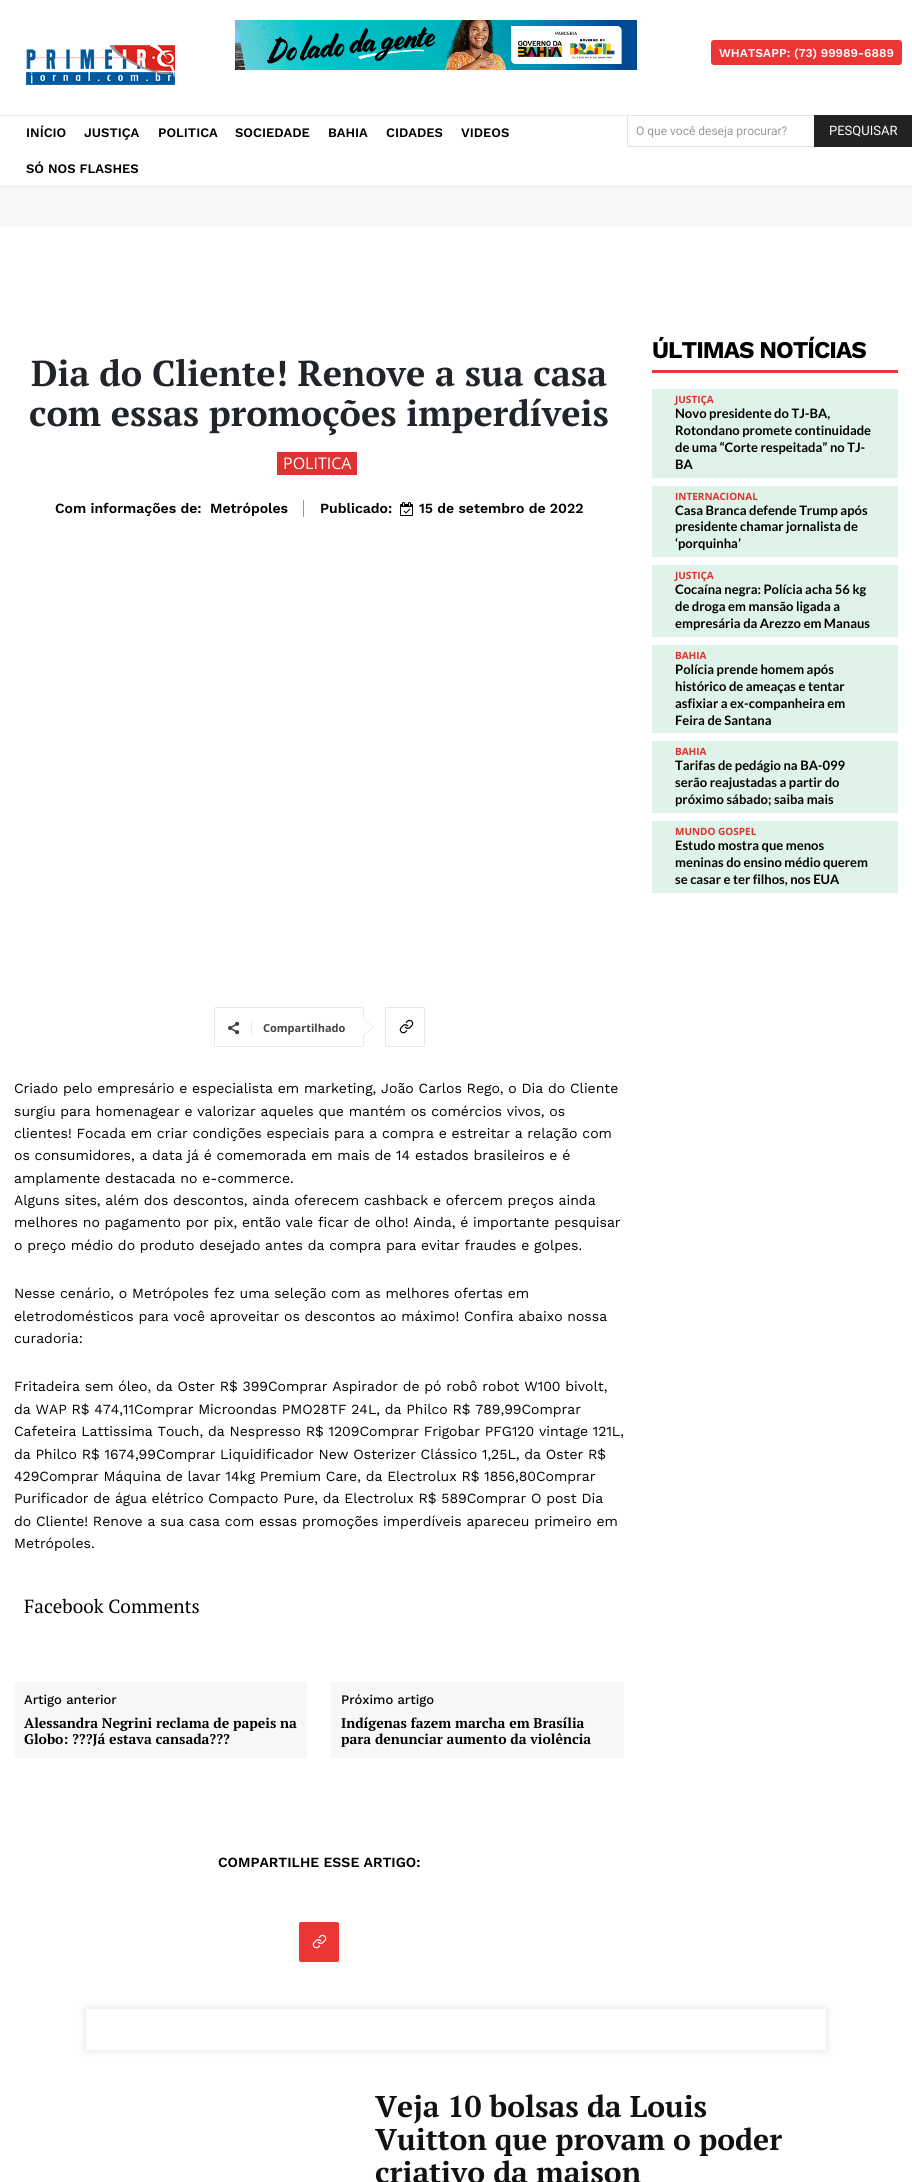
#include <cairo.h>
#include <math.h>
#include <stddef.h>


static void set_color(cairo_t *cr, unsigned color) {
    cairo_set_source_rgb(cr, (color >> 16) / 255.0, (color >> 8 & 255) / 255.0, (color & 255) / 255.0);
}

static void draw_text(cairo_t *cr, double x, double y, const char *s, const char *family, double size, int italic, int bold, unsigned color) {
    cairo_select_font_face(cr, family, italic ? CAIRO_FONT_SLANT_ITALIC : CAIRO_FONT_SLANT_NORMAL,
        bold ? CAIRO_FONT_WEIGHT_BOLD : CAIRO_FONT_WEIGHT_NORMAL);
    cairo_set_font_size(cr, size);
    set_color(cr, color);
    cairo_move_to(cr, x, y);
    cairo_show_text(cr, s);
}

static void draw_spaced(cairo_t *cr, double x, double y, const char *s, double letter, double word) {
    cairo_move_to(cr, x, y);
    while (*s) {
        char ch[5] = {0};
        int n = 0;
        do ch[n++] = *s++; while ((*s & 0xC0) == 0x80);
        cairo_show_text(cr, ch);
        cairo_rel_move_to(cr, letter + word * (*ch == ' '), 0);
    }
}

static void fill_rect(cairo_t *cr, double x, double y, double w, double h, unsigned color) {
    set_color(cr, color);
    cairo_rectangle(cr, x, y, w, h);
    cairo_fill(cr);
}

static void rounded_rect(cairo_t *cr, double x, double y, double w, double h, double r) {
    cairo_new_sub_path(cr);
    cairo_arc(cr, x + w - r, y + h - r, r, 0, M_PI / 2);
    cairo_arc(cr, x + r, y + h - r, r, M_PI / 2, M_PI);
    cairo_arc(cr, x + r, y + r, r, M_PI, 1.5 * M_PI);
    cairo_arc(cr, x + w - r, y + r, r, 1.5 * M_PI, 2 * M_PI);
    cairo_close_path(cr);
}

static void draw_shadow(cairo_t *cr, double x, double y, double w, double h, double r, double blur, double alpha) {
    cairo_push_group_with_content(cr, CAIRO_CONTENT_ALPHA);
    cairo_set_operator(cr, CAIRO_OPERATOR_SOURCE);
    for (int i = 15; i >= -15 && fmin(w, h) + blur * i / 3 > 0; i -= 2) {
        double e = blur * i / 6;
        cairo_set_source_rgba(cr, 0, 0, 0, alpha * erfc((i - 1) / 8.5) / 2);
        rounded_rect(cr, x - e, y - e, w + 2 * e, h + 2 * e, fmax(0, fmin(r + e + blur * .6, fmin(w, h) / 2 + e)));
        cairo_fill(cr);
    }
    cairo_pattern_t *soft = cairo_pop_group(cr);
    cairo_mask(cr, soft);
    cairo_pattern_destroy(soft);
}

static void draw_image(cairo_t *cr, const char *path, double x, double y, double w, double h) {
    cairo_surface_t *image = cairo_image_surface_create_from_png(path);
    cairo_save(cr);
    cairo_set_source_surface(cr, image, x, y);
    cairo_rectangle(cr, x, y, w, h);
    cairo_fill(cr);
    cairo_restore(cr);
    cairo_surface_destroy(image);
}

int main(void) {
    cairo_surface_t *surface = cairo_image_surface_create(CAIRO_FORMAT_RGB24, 912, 2182);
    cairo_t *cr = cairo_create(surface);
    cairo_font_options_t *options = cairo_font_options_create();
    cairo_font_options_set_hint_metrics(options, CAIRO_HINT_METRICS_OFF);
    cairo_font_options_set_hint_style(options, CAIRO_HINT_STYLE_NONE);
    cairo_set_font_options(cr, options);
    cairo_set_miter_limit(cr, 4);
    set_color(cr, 0xFFFFFF);
    cairo_paint(cr);
    draw_image(cr, "assets/img1.png", 26, 45, 149, 40);
    draw_image(cr, "assets/img2.png", 235, 20, 402, 50);
    set_color(cr, 0xEC3535);
    rounded_rect(cr, 711, 40, 191, 25, 3);
    cairo_fill(cr);
    draw_text(cr, 719, 57, "WHATSAPP: (73) 99989-6889", "Work Sans SemiBold", 12, 0, 0, 0xFFFFFF);
    fill_rect(cr, 0, 115, 627, 1, 0xEAEAEA);
    fill_rect(cr, 0, 186, 912, 1, 0xEAEAEA);
    draw_text(cr, 26, 137, "INÍCIO", "Work Sans SemiBold", 13, 0, 0, 0x000000);
    draw_text(cr, 84, 137, "JUSTIÇA", "Work Sans SemiBold", 13, 0, 0, 0x000000);
    draw_text(cr, 158, 137, "POLITICA", "Work Sans SemiBold", 13, 0, 0, 0x000000);
    draw_text(cr, 235, 137, "SOCIEDADE", "Work Sans SemiBold", 13, 0, 0, 0x000000);
    draw_text(cr, 328, 137, "BAHIA", "Work Sans SemiBold", 13, 0, 0, 0x000000);
    draw_text(cr, 386, 137, "CIDADES", "Work Sans SemiBold", 13, 0, 0, 0x000000);
    draw_text(cr, 461, 137, "VIDEOS", "Work Sans SemiBold", 13, 0, 0, 0x000000);
    draw_text(cr, 26, 173, "SÓ NOS FLASHES", "Work Sans SemiBold", 13, 0, 0, 0x000000);
    cairo_rectangle(cr, 627.5, 115.5, 284, 31);
    set_color(cr, 0xE1E1E1);
    cairo_set_line_width(cr, 1);
    cairo_stroke(cr);
    draw_text(cr, 636, 135, "O que você deseja procurar?", "Roboto", 12, 0, 0, 0x999999);
    fill_rect(cr, 814, 115, 98, 32, 0x222222);
    draw_text(cr, 829, 135, "PESQUISAR", "Roboto", 13, 0, 0, 0xFFFFFF);
    fill_rect(cr, 0, 187, 912, 40, 0xF7F7F7);
    draw_text(cr, 31, 386, "Dia do Cliente! Renove a sua casa", "PT Serif", 36, 0, 1, 0x212529);
    draw_text(cr, 29, 426, "com essas promoções imperdíveis", "PT Serif", 36, 0, 1, 0x212529);
    fill_rect(cr, 277, 452, 80, 23, 0xDD3333);
    draw_text(cr, 283, 469, "POLITICA", "Open Sans", 16, 0, 0, 0xFFFFFF);
    draw_text(cr, 55, 513, "Com informações de:", "Work Sans SemiBold", 14, 0, 0, 0x000000);
    draw_text(cr, 210, 513, "Metrópoles", "Work Sans SemiBold", 14, 0, 0, 0x000000);
    fill_rect(cr, 303, 500, 1, 17, 0x999999);
    draw_text(cr, 320, 513, "Publicado:", "Work Sans SemiBold", 14, 0, 0, 0x000000);
    draw_image(cr, "assets/img3.png", 400, 502, 13, 14);
    draw_text(cr, 419, 513, "15 de setembro de 2022", "Work Sans SemiBold", 14, 0, 0, 0x000000);
    rounded_rect(cr, 214.5, 1007.5, 149, 39, 1.5);
    set_color(cr, 0xE9E9E9);
    cairo_stroke(cr);
    cairo_new_path(cr);
    cairo_move_to(cr, 363, 1036);
    cairo_line_to(cr, 363, 1018);
    cairo_line_to(cr, 374, 1027);
    cairo_close_path(cr);
    cairo_fill(cr);
    draw_image(cr, "assets/img4.png", 228, 1021, 12, 14);
    fill_rect(cr, 251, 1020, 1, 16, 0xEBEBEB);
    draw_text(cr, 263, 1032, "Compartilhado", "Open Sans", 11, 0, 1, 0x444444);
    set_color(cr, 0xFFFFFF);
    cairo_new_path(cr);
    cairo_move_to(cr, 363, 1035);
    cairo_line_to(cr, 363, 1019);
    cairo_line_to(cr, 373, 1027);
    cairo_close_path(cr);
    cairo_fill(cr);
    rounded_rect(cr, 385.5, 1007.5, 39, 39, 1.5);
    set_color(cr, 0xE9E9E9);
    cairo_stroke(cr);
    draw_image(cr, "assets/img5.png", 399, 1019, 15, 15);
    draw_text(cr, 14, 1093, "Criado pelo empresário e especialista em marketing, João Carlos Rego, o Dia do Cliente", "Work Sans", 14, 0, 0, 0x000000);
    draw_text(cr, 14, 1116, "surgiu para homenagear e valorizar aqueles que mantém os comércios vivos, os", "Work Sans", 14, 0, 0, 0x000000);
    draw_text(cr, 14, 1138, "clientes! Focada em criar condições especiais para a compra e estreitar a relação com", "Work Sans", 14, 0, 0, 0x000000);
    draw_text(cr, 14, 1160, "os consumidores, a data já é comemorada em mais de 14 estados brasileiros e é", "Work Sans", 14, 0, 0, 0x000000);
    draw_text(cr, 14, 1183, "amplamente destacada no e-commerce.", "Work Sans", 14, 0, 0, 0x000000);
    draw_text(cr, 14, 1205, "Alguns sites, além dos descontos, ainda oferecem cashback e ofercem preços ainda", "Work Sans", 14, 0, 0, 0x000000);
    draw_text(cr, 14, 1227, "melhores no pagamento por pix, então vale ficar de olho! Ainda, é importante pesquisar", "Work Sans", 14, 0, 0, 0x000000);
    draw_text(cr, 14, 1250, "o preço médio do produto desejado antes da compra para evitar fraudes e golpes.", "Work Sans", 14, 0, 0, 0x000000);
    draw_text(cr, 14, 1298, "Nesse cenário, o Metrópoles fez uma seleção com as melhores ofertas em", "Work Sans", 14, 0, 0, 0x000000);
    draw_text(cr, 14, 1321, "eletrodomésticos para você aproveitar os descontos ao máximo! Confira abaixo nossa", "Work Sans", 14, 0, 0, 0x000000);
    draw_text(cr, 14, 1343, "curadoria:", "Work Sans", 14, 0, 0, 0x000000);
    draw_text(cr, 14, 1391, "Fritadeira sem óleo, da Oster R$ 399Comprar Aspirador de pó robô robot W100 bivolt,", "Work Sans", 14, 0, 0, 0x000000);
    draw_text(cr, 14, 1414, "da WAP R$ 474,11Comprar Microondas PMO28TF 24L, da Philco R$ 789,99Comprar", "Work Sans", 14, 0, 0, 0x000000);
    draw_text(cr, 14, 1436, "Cafeteira Lattissima Touch, da Nespresso R$ 1209Comprar Frigobar PFG120 vintage 121L,", "Work Sans", 14, 0, 0, 0x000000);
    draw_text(cr, 14, 1459, "da Philco R$ 1674,99Comprar Liquidificador New Osterizer Clássico 1,25L, da Oster R$", "Work Sans", 14, 0, 0, 0x000000);
    draw_text(cr, 14, 1481, "429Comprar Máquina de lavar 14kg Premium Care, da Electrolux R$ 1856,80Comprar", "Work Sans", 14, 0, 0, 0x000000);
    draw_text(cr, 14, 1503, "Purificador de água elétrico Compacto Pure, da Electrolux R$ 589Comprar O post Dia", "Work Sans", 14, 0, 0, 0x000000);
    draw_text(cr, 14, 1526, "do Cliente! Renove a sua casa com essas promoções imperdíveis apareceu primeiro em", "Work Sans", 14, 0, 0, 0x000000);
    draw_text(cr, 14, 1548, "Metrópoles.", "Work Sans", 14, 0, 0, 0x000000);
    draw_text(cr, 24, 1613, "Facebook Comments", "PT Serif", 19, 0, 0, 0x000000);
    fill_rect(cr, 14, 1682, 293, 76, 0xF7F7F7);
    draw_text(cr, 24, 1704, "Artigo anterior", "Work Sans Medium", 13, 0, 0, 0x000000);
    draw_text(cr, 24, 1728, "Alessandra Negrini reclama de papeis na", "PT Serif", 14, 0, 1, 0x000000);
    draw_text(cr, 24, 1744, "Globo: ?\077?Já estava cansada?\077?", "PT Serif", 14, 0, 1, 0x000000);
    fill_rect(cr, 331, 1682, 293, 76, 0xF7F7F7);
    draw_text(cr, 341, 1704, "Próximo artigo", "Work Sans Medium", 13, 0, 0, 0x000000);
    draw_text(cr, 341, 1728, "Indígenas fazem marcha em Brasília", "PT Serif", 14, 0, 1, 0x000000);
    draw_text(cr, 341, 1744, "para denunciar aumento da violência", "PT Serif", 14, 0, 1, 0x000000);
    draw_text(cr, 218, 1867, "COMPARTILHE ESSE ARTIGO:", "Work Sans SemiBold", 14, 0, 0, 0x000000);
    set_color(cr, 0xEC3535);
    rounded_rect(cr, 299, 1922, 40, 40, 2);
    cairo_fill(cr);
    draw_image(cr, "assets/img6.png", 312, 1934, 15, 15);
    fill_rect(cr, 652, 370, 246, 3, 0xEC3535);
    cairo_select_font_face(cr, "Work Sans", CAIRO_FONT_SLANT_NORMAL, CAIRO_FONT_WEIGHT_BOLD);
    cairo_set_font_size(cr, 24);
    set_color(cr, 0x000000);
    draw_spaced(cr, 652, 358, "ÚLTIMAS NOTÍCIAS", -1, 0);
    fill_rect(cr, 652, 389, 246, 89, 0xDFF3E9);
    draw_text(cr, 675, 403, "JUSTIÇA", "Open Sans", 10, 0, 1, 0xDD3333);
    draw_text(cr, 675, 418, "Novo presidente do TJ-BA,", "Lato", 13, 0, 1, 0x000000);
    draw_text(cr, 675, 435, "Rotondano promete continuidade", "Lato", 13, 0, 1, 0x000000);
    draw_text(cr, 675, 452, "de uma “Corte respeitada” no TJ-", "Lato", 13, 0, 1, 0x000000);
    draw_text(cr, 675, 469, "BA", "Lato", 13, 0, 1, 0x000000);
    fill_rect(cr, 652, 486, 246, 71, 0xDFF3E9);
    draw_text(cr, 675, 500, "INTERNACIONAL", "Open Sans", 10, 0, 1, 0xDD3333);
    draw_text(cr, 675, 515, "Casa Branca defende Trump após", "Lato", 13, 0, 1, 0x000000);
    draw_text(cr, 675, 531, "presidente chamar jornalista de", "Lato", 13, 0, 1, 0x000000);
    draw_text(cr, 675, 548, "‘porquinha’", "Lato", 13, 0, 1, 0x000000);
    fill_rect(cr, 652, 565, 246, 72, 0xDFF3E9);
    draw_text(cr, 675, 579, "JUSTIÇA", "Open Sans", 10, 0, 1, 0xDD3333);
    draw_text(cr, 675, 594, "Cocaína negra: Polícia acha 56 kg", "Lato", 13, 0, 1, 0x000000);
    draw_text(cr, 675, 611, "de droga em mansão ligada a", "Lato", 13, 0, 1, 0x000000);
    draw_text(cr, 675, 628, "empresária da Arezzo em Manaus", "Lato", 13, 0, 1, 0x000000);
    fill_rect(cr, 652, 645, 246, 88, 0xDFF3E9);
    draw_text(cr, 675, 659, "BAHIA", "Open Sans", 10, 0, 1, 0xDD3333);
    draw_text(cr, 675, 674, "Polícia prende homem após", "Lato", 13, 0, 1, 0x000000);
    draw_text(cr, 675, 691, "histórico de ameaças e tentar", "Lato", 13, 0, 1, 0x000000);
    draw_text(cr, 675, 708, "asfixiar a ex-companheira em", "Lato", 13, 0, 1, 0x000000);
    draw_text(cr, 675, 725, "Feira de Santana", "Lato", 13, 0, 1, 0x000000);
    fill_rect(cr, 652, 741, 246, 72, 0xDFF3E9);
    draw_text(cr, 675, 755, "BAHIA", "Open Sans", 10, 0, 1, 0xDD3333);
    draw_text(cr, 675, 770, "Tarifas de pedágio na BA-099", "Lato", 13, 0, 1, 0x000000);
    draw_text(cr, 675, 787, "serão reajustadas a partir do", "Lato", 13, 0, 1, 0x000000);
    draw_text(cr, 675, 804, "próximo sábado; saiba mais", "Lato", 13, 0, 1, 0x000000);
    fill_rect(cr, 652, 821, 246, 72, 0xDFF3E9);
    draw_text(cr, 675, 835, "MUNDO GOSPEL", "Open Sans", 10, 0, 1, 0xDD3333);
    draw_text(cr, 675, 850, "Estudo mostra que menos", "Lato", 13, 0, 1, 0x000000);
    draw_text(cr, 675, 867, "meninas do ensino médio querem", "Lato", 13, 0, 1, 0x000000);
    draw_text(cr, 675, 884, "se casar e ter filhos, nos EUA", "Lato", 13, 0, 1, 0x000000);
    cairo_save(cr);
    cairo_set_fill_rule(cr, CAIRO_FILL_RULE_EVEN_ODD);
    cairo_new_path(cr);
    cairo_move_to(cr, 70, 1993);
    cairo_line_to(cr, 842, 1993);
    cairo_line_to(cr, 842, 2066);
    cairo_line_to(cr, 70, 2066);
    cairo_close_path(cr);
    cairo_move_to(cr, 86, 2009);
    cairo_line_to(cr, 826, 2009);
    cairo_line_to(cr, 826, 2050);
    cairo_line_to(cr, 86, 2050);
    cairo_close_path(cr);
    cairo_clip(cr);
    set_color(cr, 0x000000);
    draw_shadow(cr, 86, 2009, 740, 41, 0, 5, 0.12);
    cairo_restore(cr);
    draw_text(cr, 375, 2117, "Veja 10 bolsas da Louis", "PT Serif", 30, 0, 1, 0x111111);
    draw_text(cr, 375, 2150, "Vuitton que provam o poder", "PT Serif", 30, 0, 1, 0x111111);
    draw_text(cr, 375, 2183, "criativo da maison", "PT Serif", 30, 0, 1, 0x111111);
    cairo_surface_write_to_png(surface, "output.png");
    cairo_font_options_destroy(options);
    cairo_destroy(cr);
    cairo_surface_destroy(surface);
    return 0;
}
